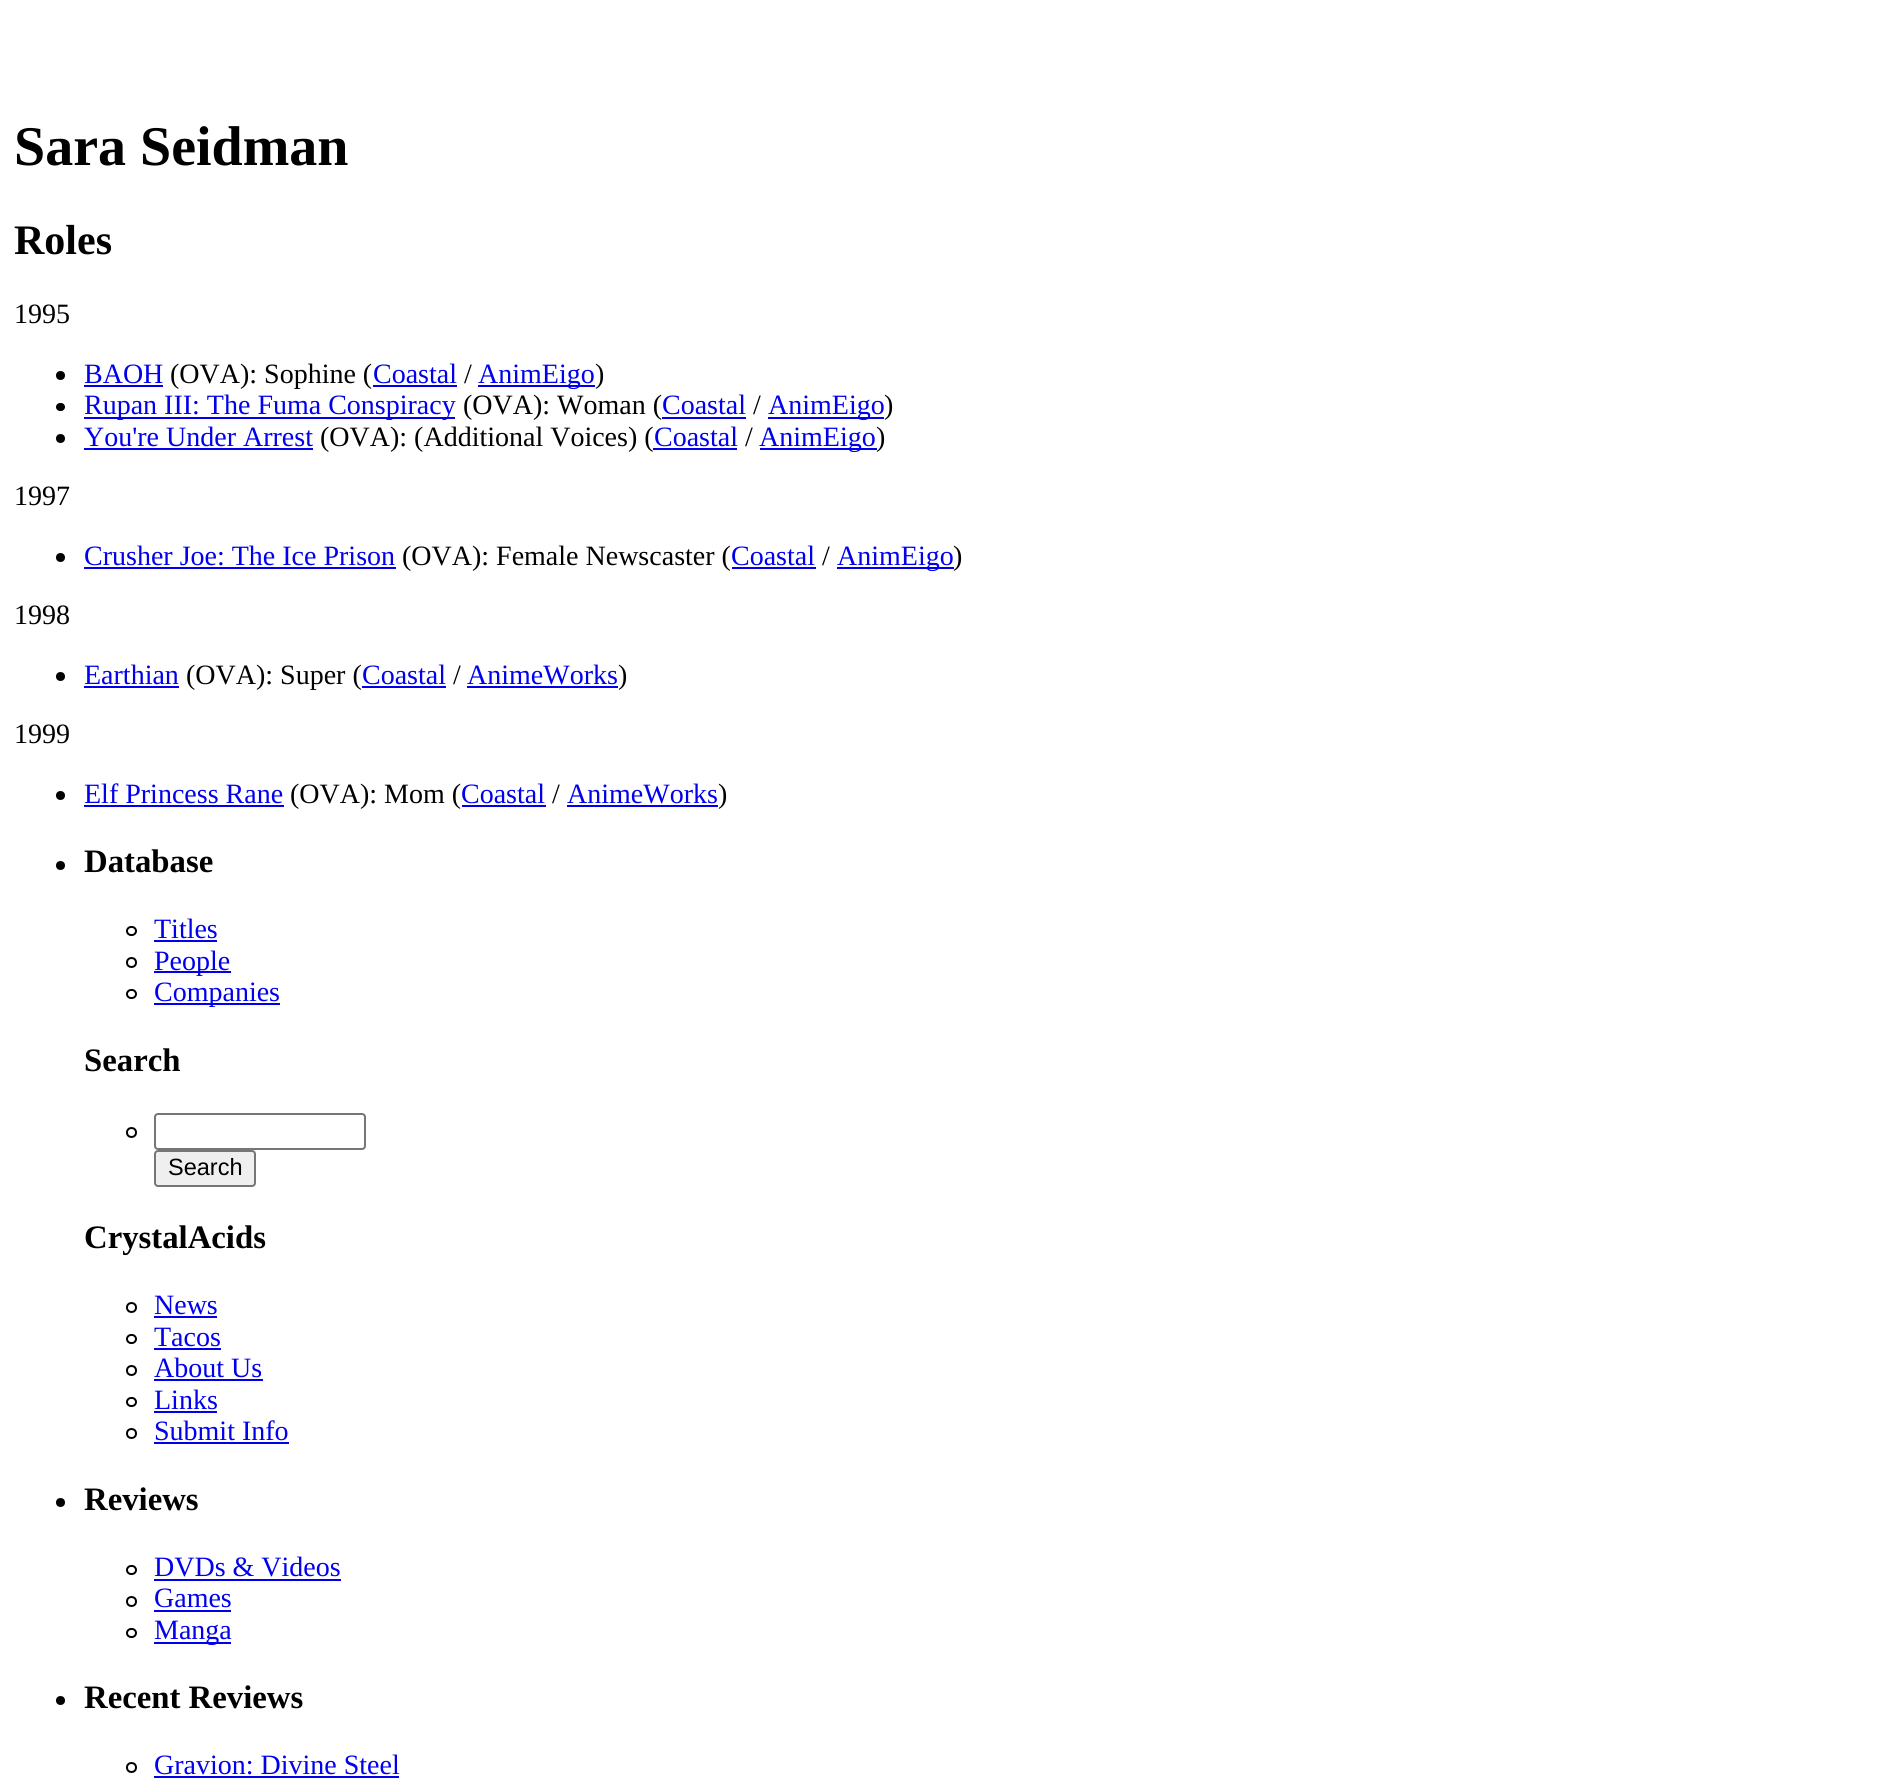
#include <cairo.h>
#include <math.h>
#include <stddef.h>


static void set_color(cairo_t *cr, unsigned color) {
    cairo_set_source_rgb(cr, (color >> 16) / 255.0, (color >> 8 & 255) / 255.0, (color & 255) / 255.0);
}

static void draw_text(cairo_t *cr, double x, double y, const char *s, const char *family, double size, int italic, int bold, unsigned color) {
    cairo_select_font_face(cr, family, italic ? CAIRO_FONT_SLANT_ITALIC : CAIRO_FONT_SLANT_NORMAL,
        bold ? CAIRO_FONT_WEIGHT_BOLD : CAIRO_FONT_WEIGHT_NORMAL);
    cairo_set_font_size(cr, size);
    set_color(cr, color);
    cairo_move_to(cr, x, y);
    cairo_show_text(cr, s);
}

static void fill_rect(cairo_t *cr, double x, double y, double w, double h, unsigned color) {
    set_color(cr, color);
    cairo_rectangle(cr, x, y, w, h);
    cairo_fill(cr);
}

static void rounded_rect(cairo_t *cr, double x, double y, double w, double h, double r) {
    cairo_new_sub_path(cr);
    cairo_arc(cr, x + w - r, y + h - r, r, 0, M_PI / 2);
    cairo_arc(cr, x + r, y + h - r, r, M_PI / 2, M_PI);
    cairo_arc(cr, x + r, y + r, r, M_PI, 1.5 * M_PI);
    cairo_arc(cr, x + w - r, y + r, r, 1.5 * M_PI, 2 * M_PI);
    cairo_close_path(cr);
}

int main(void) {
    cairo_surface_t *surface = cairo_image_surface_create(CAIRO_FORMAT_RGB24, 1900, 1780);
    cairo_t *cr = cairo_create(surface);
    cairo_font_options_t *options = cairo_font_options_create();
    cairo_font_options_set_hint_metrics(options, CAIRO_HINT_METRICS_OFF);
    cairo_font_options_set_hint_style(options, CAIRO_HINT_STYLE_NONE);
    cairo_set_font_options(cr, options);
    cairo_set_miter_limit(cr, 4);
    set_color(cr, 0xFFFFFF);
    cairo_paint(cr);
    draw_text(cr, 14, 165, "Sara Seidman", "Liberation Serif", 56, 0, 1, 0x000000);
    draw_text(cr, 14, 254, "Roles", "Liberation Serif", 42, 0, 1, 0x000000);
    draw_text(cr, 14, 323, "1995", "Liberation Serif", 28, 0, 0, 0x000000);
    cairo_new_path(cr);
    cairo_arc(cr, 60.5, 375.5, 4.5, 0, 2 * M_PI);
    cairo_fill(cr);
    draw_text(cr, 84, 383, "BAOH", "Liberation Serif", 28, 0, 0, 0x0000EE);
    fill_rect(cr, 84, 385, 79, 2, 0x0000EE);
    draw_text(cr, 170, 383, "(OVA): Sophine (", "Liberation Serif", 28, 0, 0, 0x000000);
    draw_text(cr, 373, 383, "Coastal", "Liberation Serif", 28, 0, 0, 0x0000EE);
    fill_rect(cr, 373, 385, 84, 2, 0x0000EE);
    draw_text(cr, 464, 383, "/", "Liberation Serif", 28, 0, 0, 0x000000);
    fill_rect(cr, 478, 385, 117, 2, 0x0000EE);
    draw_text(cr, 478, 383, "AnimEigo", "Liberation Serif", 28, 0, 0, 0x0000EE);
    draw_text(cr, 595, 383, ")", "Liberation Serif", 28, 0, 0, 0x000000);
    rounded_rect(cr, 56, 403, 9, 8, 4);
    cairo_fill(cr);
    fill_rect(cr, 84, 417, 371, 2, 0x0000EE);
    draw_text(cr, 84, 414, "Rupan III: The Fuma Conspiracy", "Liberation Serif", 28, 0, 0, 0x0000EE);
    draw_text(cr, 463, 414, "(OVA): Woman (", "Liberation Serif", 28, 0, 0, 0x000000);
    draw_text(cr, 662, 414, "Coastal", "Liberation Serif", 28, 0, 0, 0x0000EE);
    fill_rect(cr, 662, 417, 84, 2, 0x0000EE);
    draw_text(cr, 753, 414, "/", "Liberation Serif", 28, 0, 0, 0x000000);
    fill_rect(cr, 768, 417, 116, 2, 0x0000EE);
    draw_text(cr, 768, 414, "AnimEigo", "Liberation Serif", 28, 0, 0, 0x0000EE);
    draw_text(cr, 884, 414, ")", "Liberation Serif", 28, 0, 0, 0x000000);
    cairo_new_path(cr);
    cairo_arc(cr, 60.5, 438.5, 4.5, 0, 2 * M_PI);
    cairo_fill(cr);
    draw_text(cr, 84, 446, "You're Under Arrest", "Liberation Serif", 28, 0, 0, 0x0000EE);
    fill_rect(cr, 84, 448, 229, 2, 0x0000EE);
    draw_text(cr, 320, 446, "(OVA): (Additional Voices) (", "Liberation Serif", 28, 0, 0, 0x000000);
    draw_text(cr, 654, 446, "Coastal", "Liberation Serif", 28, 0, 0, 0x0000EE);
    fill_rect(cr, 653, 448, 84, 2, 0x0000EE);
    draw_text(cr, 745, 446, "/", "Liberation Serif", 28, 0, 0, 0x000000);
    fill_rect(cr, 760, 448, 117, 2, 0x0000EE);
    draw_text(cr, 759, 446, "AnimEigo", "Liberation Serif", 28, 0, 0, 0x0000EE);
    draw_text(cr, 876, 446, ")", "Liberation Serif", 28, 0, 0, 0x000000);
    draw_text(cr, 14, 505, "1997", "Liberation Serif", 28, 0, 0, 0x000000);
    cairo_new_path(cr);
    cairo_arc(cr, 60.5, 557.5, 4.5, 0, 2 * M_PI);
    cairo_fill(cr);
    draw_text(cr, 84, 565, "Crusher Joe: The Ice Prison", "Liberation Serif", 28, 0, 0, 0x0000EE);
    fill_rect(cr, 84, 567, 312, 2, 0x0000EE);
    draw_text(cr, 402, 565, "(OVA): Female Newscaster (", "Liberation Serif", 28, 0, 0, 0x000000);
    draw_text(cr, 731, 565, "Coastal", "Liberation Serif", 28, 0, 0, 0x0000EE);
    fill_rect(cr, 732, 567, 84, 2, 0x0000EE);
    draw_text(cr, 822, 565, "/", "Liberation Serif", 28, 0, 0, 0x000000);
    fill_rect(cr, 837, 567, 117, 2, 0x0000EE);
    draw_text(cr, 837, 565, "AnimEigo", "Liberation Serif", 28, 0, 0, 0x0000EE);
    draw_text(cr, 953, 565, ")", "Liberation Serif", 28, 0, 0, 0x000000);
    draw_text(cr, 14, 624, "1998", "Liberation Serif", 28, 0, 0, 0x000000);
    cairo_new_path(cr);
    cairo_arc(cr, 60.5, 676.5, 4.5, 0, 2 * M_PI);
    cairo_fill(cr);
    draw_text(cr, 84, 684, "Earthian", "Liberation Serif", 28, 0, 0, 0x0000EE);
    fill_rect(cr, 84, 686, 95, 2, 0x0000EE);
    draw_text(cr, 186, 684, "(OVA): Super (", "Liberation Serif", 28, 0, 0, 0x000000);
    draw_text(cr, 362, 684, "Coastal", "Liberation Serif", 28, 0, 0, 0x0000EE);
    fill_rect(cr, 362, 686, 84, 2, 0x0000EE);
    draw_text(cr, 453, 684, "/", "Liberation Serif", 28, 0, 0, 0x000000);
    draw_text(cr, 467, 684, "AnimeWorks", "Liberation Serif", 28, 0, 0, 0x0000EE);
    fill_rect(cr, 467, 686, 151, 2, 0x0000EE);
    draw_text(cr, 618, 684, ")", "Liberation Serif", 28, 0, 0, 0x000000);
    draw_text(cr, 14, 743, "1999", "Liberation Serif", 28, 0, 0, 0x000000);
    cairo_new_path(cr);
    cairo_arc(cr, 60.5, 795.5, 4.5, 0, 2 * M_PI);
    cairo_fill(cr);
    draw_text(cr, 84, 803, "Elf Princess Rane", "Liberation Serif", 28, 0, 0, 0x0000EE);
    fill_rect(cr, 84, 805, 200, 2, 0x0000EE);
    draw_text(cr, 290, 803, "(OVA): Mom (", "Liberation Serif", 28, 0, 0, 0x000000);
    draw_text(cr, 461, 803, "Coastal", "Liberation Serif", 28, 0, 0, 0x0000EE);
    fill_rect(cr, 462, 805, 84, 2, 0x0000EE);
    draw_text(cr, 552, 803, "/", "Liberation Serif", 28, 0, 0, 0x000000);
    draw_text(cr, 567, 803, "AnimeWorks", "Liberation Serif", 28, 0, 0, 0x0000EE);
    fill_rect(cr, 567, 805, 151, 2, 0x0000EE);
    draw_text(cr, 718, 803, ")", "Liberation Serif", 28, 0, 0, 0x000000);
    cairo_new_path(cr);
    cairo_arc(cr, 60.5, 865.5, 4.5, 0, 2 * M_PI);
    cairo_fill(cr);
    draw_text(cr, 84, 872, "Database", "Liberation Serif", 32.75, 0, 1, 0x000000);
    rounded_rect(cr, 127, 927, 9, 8, 4);
    cairo_stroke(cr);
    draw_text(cr, 154, 938, "Titles", "Liberation Serif", 28, 0, 0, 0x0000EE);
    fill_rect(cr, 154, 940, 63, 2, 0x0000EE);
    cairo_new_path(cr);
    cairo_arc(cr, 131.5, 962.5, 4.5, 0, 2 * M_PI);
    set_color(cr, 0x000000);
    cairo_stroke(cr);
    fill_rect(cr, 154, 971, 77, 2, 0x0000EE);
    draw_text(cr, 154, 970, "People", "Liberation Serif", 28, 0, 0, 0x0000EE);
    rounded_rect(cr, 127, 990, 9, 8, 4);
    set_color(cr, 0x000000);
    cairo_stroke(cr);
    fill_rect(cr, 154, 1003, 126, 2, 0x0000EE);
    draw_text(cr, 154, 1001, "Companies", "Liberation Serif", 28, 0, 0, 0x0000EE);
    draw_text(cr, 84, 1071, "Search", "Liberation Serif", 32.75, 0, 1, 0x000000);
    cairo_new_path(cr);
    cairo_arc(cr, 131.5, 1132.5, 4.5, 0, 2 * M_PI);
    cairo_stroke(cr);
    rounded_rect(cr, 155, 1114, 210, 35, 3);
    set_color(cr, 0x767676);
    cairo_stroke(cr);
    set_color(cr, 0xEFEFEF);
    rounded_rect(cr, 155, 1151, 100, 35, 3);
    cairo_fill_preserve(cr);
    set_color(cr, 0x767676);
    cairo_stroke(cr);
    draw_text(cr, 168, 1175, "Search", "Liberation Sans", 23.5, 0, 0, 0x000000);
    draw_text(cr, 84, 1248, "CrystalAcids", "Liberation Serif", 32.75, 0, 1, 0x000000);
    cairo_new_path(cr);
    cairo_arc(cr, 131.5, 1307.5, 4.5, 0, 2 * M_PI);
    cairo_stroke(cr);
    draw_text(cr, 154, 1314, "News", "Liberation Serif", 28, 0, 0, 0x0000EE);
    fill_rect(cr, 154, 1316, 63, 2, 0x0000EE);
    rounded_rect(cr, 127, 1335, 9, 8, 4);
    set_color(cr, 0x000000);
    cairo_stroke(cr);
    draw_text(cr, 154, 1346, "Tacos", "Liberation Serif", 28, 0, 0, 0x0000EE);
    fill_rect(cr, 154, 1348, 67, 2, 0x0000EE);
    cairo_new_path(cr);
    cairo_arc(cr, 131.5, 1370.5, 4.5, 0, 2 * M_PI);
    set_color(cr, 0x000000);
    cairo_stroke(cr);
    draw_text(cr, 154, 1377, "About Us", "Liberation Serif", 28, 0, 0, 0x0000EE);
    fill_rect(cr, 154, 1379, 109, 2, 0x0000EE);
    rounded_rect(cr, 127, 1398, 9, 8, 4);
    set_color(cr, 0x000000);
    cairo_stroke(cr);
    draw_text(cr, 154, 1409, "Links", "Liberation Serif", 28, 0, 0, 0x0000EE);
    fill_rect(cr, 154, 1411, 63, 2, 0x0000EE);
    cairo_new_path(cr);
    cairo_arc(cr, 131.5, 1433.5, 4.5, 0, 2 * M_PI);
    set_color(cr, 0x000000);
    cairo_stroke(cr);
    draw_text(cr, 154, 1440, "Submit Info", "Liberation Serif", 28, 0, 0, 0x0000EE);
    fill_rect(cr, 154, 1442, 135, 2, 0x0000EE);
    set_color(cr, 0x000000);
    cairo_new_path(cr);
    cairo_arc(cr, 60.5, 1502.5, 4.5, 0, 2 * M_PI);
    cairo_fill(cr);
    draw_text(cr, 84, 1510, "Reviews", "Liberation Serif", 32.75, 0, 1, 0x000000);
    rounded_rect(cr, 127, 1566, 9, 8, 4);
    cairo_stroke(cr);
    draw_text(cr, 154, 1576, "DVDs & Videos", "Liberation Serif", 28, 0, 0, 0x0000EE);
    fill_rect(cr, 154, 1579, 187, 2, 0x0000EE);
    cairo_new_path(cr);
    cairo_arc(cr, 131.5, 1601.5, 4.5, 0, 2 * M_PI);
    set_color(cr, 0x000000);
    cairo_stroke(cr);
    draw_text(cr, 154, 1607, "Games", "Liberation Serif", 28, 0, 0, 0x0000EE);
    fill_rect(cr, 154, 1610, 77, 2, 0x0000EE);
    rounded_rect(cr, 127, 1629, 9, 8, 4);
    set_color(cr, 0x000000);
    cairo_stroke(cr);
    fill_rect(cr, 154, 1642, 77, 2, 0x0000EE);
    draw_text(cr, 154, 1639, "Manga", "Liberation Serif", 28, 0, 0, 0x0000EE);
    set_color(cr, 0x000000);
    cairo_new_path(cr);
    cairo_arc(cr, 60.5, 1700.5, 4.5, 0, 2 * M_PI);
    cairo_fill(cr);
    draw_text(cr, 84, 1708, "Recent Reviews", "Liberation Serif", 32.75, 0, 1, 0x000000);
    cairo_new_path(cr);
    cairo_arc(cr, 131.5, 1767.5, 4.5, 0, 2 * M_PI);
    cairo_stroke(cr);
    draw_text(cr, 154, 1774, "Gravion: Divine Steel", "Liberation Serif", 28, 0, 0, 0x0000EE);
    fill_rect(cr, 154, 1776, 245, 2, 0x0000EE);
    cairo_surface_write_to_png(surface, "output.png");
    cairo_font_options_destroy(options);
    cairo_destroy(cr);
    cairo_surface_destroy(surface);
    return 0;
}
